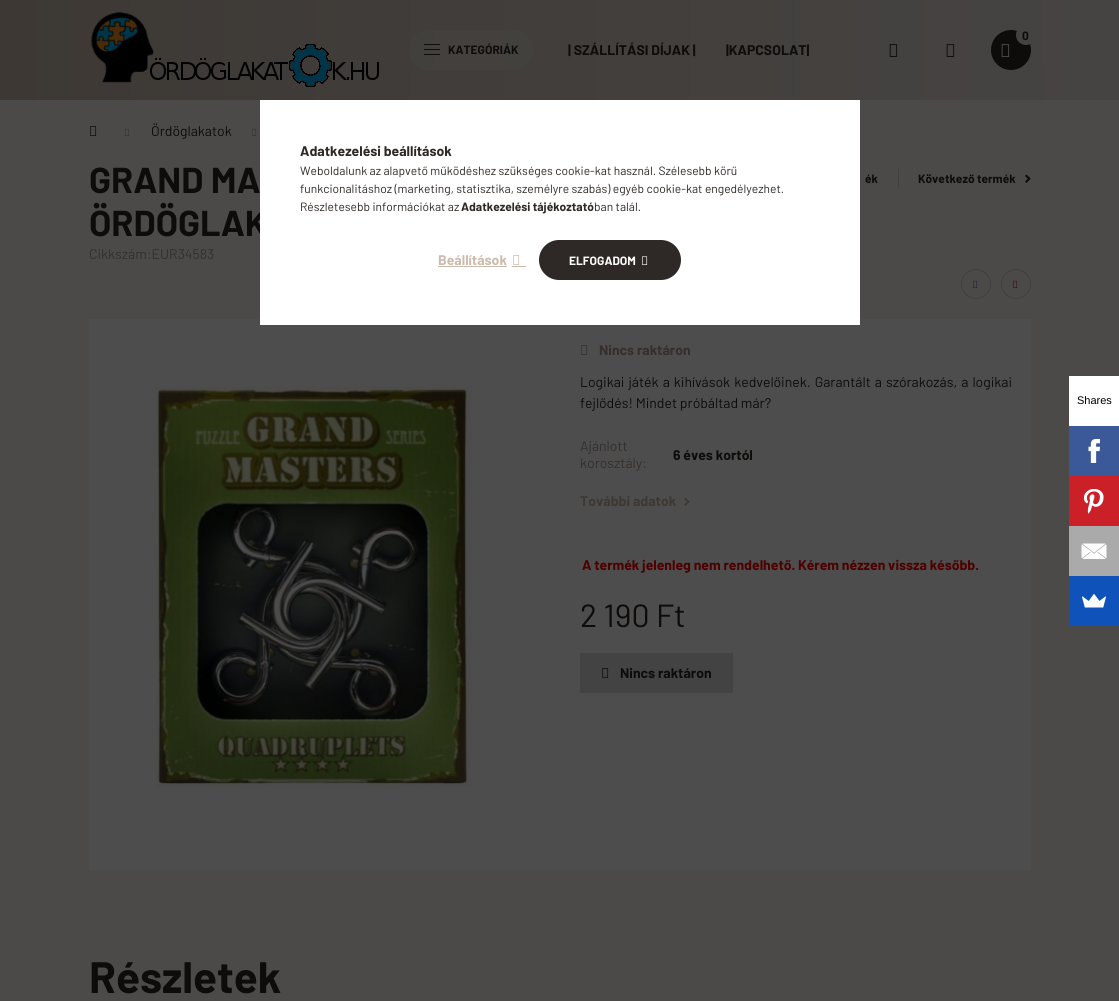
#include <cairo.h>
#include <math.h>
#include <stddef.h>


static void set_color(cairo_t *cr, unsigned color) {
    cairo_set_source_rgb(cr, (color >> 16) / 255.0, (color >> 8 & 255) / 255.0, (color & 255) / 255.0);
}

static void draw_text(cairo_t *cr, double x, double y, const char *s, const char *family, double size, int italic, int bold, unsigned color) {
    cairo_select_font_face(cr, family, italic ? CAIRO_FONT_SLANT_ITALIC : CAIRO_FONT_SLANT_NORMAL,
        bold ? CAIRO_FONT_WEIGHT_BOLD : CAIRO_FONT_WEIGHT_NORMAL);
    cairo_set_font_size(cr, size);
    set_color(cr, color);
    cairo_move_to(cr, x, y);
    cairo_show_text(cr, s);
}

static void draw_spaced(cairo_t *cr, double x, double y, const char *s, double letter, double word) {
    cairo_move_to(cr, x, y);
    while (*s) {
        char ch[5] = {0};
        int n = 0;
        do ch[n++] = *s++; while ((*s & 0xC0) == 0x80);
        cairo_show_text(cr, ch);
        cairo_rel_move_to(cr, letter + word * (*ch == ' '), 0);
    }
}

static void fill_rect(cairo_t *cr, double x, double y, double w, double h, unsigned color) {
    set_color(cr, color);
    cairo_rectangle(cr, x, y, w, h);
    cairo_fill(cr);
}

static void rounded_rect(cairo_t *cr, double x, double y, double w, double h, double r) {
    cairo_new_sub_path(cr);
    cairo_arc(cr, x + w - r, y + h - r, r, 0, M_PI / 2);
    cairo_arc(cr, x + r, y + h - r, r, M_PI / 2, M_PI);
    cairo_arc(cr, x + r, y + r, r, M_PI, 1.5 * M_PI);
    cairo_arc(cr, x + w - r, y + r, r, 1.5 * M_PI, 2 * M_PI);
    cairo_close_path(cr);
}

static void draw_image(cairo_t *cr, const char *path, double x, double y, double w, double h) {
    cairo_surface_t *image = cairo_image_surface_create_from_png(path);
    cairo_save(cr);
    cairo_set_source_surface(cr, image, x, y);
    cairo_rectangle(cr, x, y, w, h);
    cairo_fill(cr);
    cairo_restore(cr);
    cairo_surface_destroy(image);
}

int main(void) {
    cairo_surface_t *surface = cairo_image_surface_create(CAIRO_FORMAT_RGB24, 1119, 1001);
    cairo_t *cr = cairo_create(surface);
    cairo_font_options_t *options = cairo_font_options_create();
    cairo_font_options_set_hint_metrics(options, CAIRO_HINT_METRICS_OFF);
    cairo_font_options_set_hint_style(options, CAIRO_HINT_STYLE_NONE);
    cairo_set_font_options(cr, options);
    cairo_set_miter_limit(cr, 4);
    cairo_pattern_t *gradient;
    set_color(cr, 0x4B4A49);
    cairo_paint(cr);
    gradient = cairo_pattern_create_linear(0, 501, 1119, 500);
    cairo_pattern_add_color_stop_rgba(gradient, 0, 0.239, 0.22, 0.204, 1);
    cairo_pattern_add_color_stop_rgba(gradient, 1, 0.275, 0.267, 0.263, 1);
    cairo_set_source(cr, gradient);
    cairo_pattern_destroy(gradient);
    cairo_rectangle(cr, 0, 0, 1119, 100);
    cairo_fill(cr);
    draw_image(cr, "assets/img1.png", 91, 12, 288, 75);
    cairo_set_source_rgba(cr, 0.302, 0.302, 0.302, 0.2);
    rounded_rect(cr, 409, 30, 124, 40, 20);
    cairo_fill(cr);
    fill_rect(cr, 424, 44, 16, 1, 0x0E0C0B);
    fill_rect(cr, 424, 49, 16, 1, 0x0E0C0B);
    fill_rect(cr, 424, 54, 16, 1, 0x0E0C0B);
    draw_text(cr, 448, 54, "KATEGÓRIÁK", "Barlow", 12, 0, 1, 0x0E0C0B);
    cairo_new_path(cr);
    cairo_arc(cr, 1011, 50, 20, 0, 2 * M_PI);
    cairo_fill(cr);
    gradient = cairo_pattern_create_linear(0, 501, 1119, 500);
    cairo_pattern_add_color_stop_rgba(gradient, 0, 0.239, 0.22, 0.204, 1);
    cairo_pattern_add_color_stop_rgba(gradient, 1, 0.275, 0.267, 0.263, 1);
    cairo_set_source(cr, gradient);
    cairo_pattern_destroy(gradient);
    cairo_arc(cr, 1026, 35, 10, 0, 2 * M_PI);
    cairo_fill(cr);
    draw_text(cr, 1022, 40, "0", "Barlow", 12, 0, 1, 0x0E0C0B);
    draw_image(cr, "assets/img2.png", 1001, 44, 9, 13);
    draw_image(cr, "assets/img3.png", 889, 44, 9, 13);
    draw_image(cr, "assets/img4.png", 946, 44, 9, 13);
    draw_text(cr, 568, 55, "| SZÁLLÍTÁSI DÍJAK |", "Barlow", 14, 0, 1, 0x0E0C0B);
    draw_text(cr, 726, 55, "|KAPCSOLAT|", "Barlow", 14, 0, 1, 0x0E0C0B);
    draw_image(cr, "assets/img5.png", 90, 126, 7, 10);
    draw_image(cr, "assets/img6.png", 124, 128, 6, 8);
    draw_text(cr, 151, 136, "Ördöglakatok", "Barlow", 14, 0, 0, 0x0E0C0B);
    draw_image(cr, "assets/img6.png", 251, 128, 6, 8);
    draw_text(cr, 89, 193, "GRAND MA", "Barlow", 36, 0, 1, 0x0E0C0B);
    draw_text(cr, 89, 236, "ÖRDÖGLAK", "Barlow", 36, 0, 1, 0x0E0C0B);
    draw_text(cr, 865, 183, "ék", "Barlow", 12, 0, 1, 0x0E0C0B);
    fill_rect(cr, 898, 169, 1, 18, 0x404040);
    draw_text(cr, 918, 183, "Következő termék", "Barlow", 12, 0, 1, 0x0E0C0B);
    cairo_new_path(cr);
    cairo_move_to(cr, 1025, 181.5);
    cairo_line_to(cr, 1029, 177.5);
    cairo_line_to(cr, 1030.5, 179);
    cairo_line_to(cr, 1026.5, 183);
    cairo_close_path(cr);
    cairo_fill(cr);
    cairo_new_path(cr);
    cairo_move_to(cr, 1026.5, 174.5);
    cairo_line_to(cr, 1030.5, 178.5);
    cairo_line_to(cr, 1029, 180);
    cairo_line_to(cr, 1025, 176);
    cairo_close_path(cr);
    cairo_fill(cr);
    draw_text(cr, 89, 259, "Cikkszám:EUR34583", "Barlow", 14, 0, 0, 0x342F2C);
    cairo_new_path(cr);
    cairo_arc(cr, 976, 284, 14.5, 0, 2 * M_PI);
    set_color(cr, 0x404040);
    cairo_set_line_width(cr, 1);
    cairo_stroke(cr);
    draw_image(cr, "assets/img7.png", 972, 280, 6, 8);
    cairo_arc(cr, 1016, 284, 14.5, 0, 2 * M_PI);
    cairo_stroke(cr);
    draw_image(cr, "assets/img8.png", 1012, 280, 6, 8);
    fill_rect(cr, 89, 319, 942, 551, 0x4D4D4D);
    draw_image(cr, "assets/img9.png", 156, 386, 316, 401);
    draw_image(cr, "assets/img10.png", 581, 345, 7, 10);
    draw_text(cr, 599, 355, "Nincs raktáron", "Barlow", 14, 0, 1, 0x342F2C);
    cairo_select_font_face(cr, "Barlow", CAIRO_FONT_SLANT_NORMAL, CAIRO_FONT_WEIGHT_NORMAL);
    set_color(cr, 0x0E0C0B);
    draw_spaced(cr, 580, 387, "Logikai játék a kihívások kedvelőinek. Garantált a szórakozás, a logikai", 0, 1.25);
    draw_text(cr, 580, 408, "fejlődés! Mindet próbáltad már?", "Barlow", 14, 0, 0, 0x0E0C0B);
    draw_text(cr, 580, 451, "Ajánlott", "Barlow", 14, 0, 0, 0x342F2C);
    draw_text(cr, 580, 468, "korosztály:", "Barlow", 14, 0, 0, 0x342F2C);
    draw_text(cr, 673, 460, "6 éves kortól", "Barlow", 14, 0, 1, 0x0E0C0B);
    draw_text(cr, 580, 506, "További adatok", "Barlow", 14, 0, 1, 0x3D3834);
    cairo_new_path(cr);
    cairo_move_to(cr, 684, 504.5);
    cairo_line_to(cr, 688.5, 500.5);
    cairo_line_to(cr, 689.5, 501.5);
    cairo_line_to(cr, 685.5, 506);
    cairo_close_path(cr);
    cairo_fill(cr);
    cairo_new_path(cr);
    cairo_move_to(cr, 685.5, 497.5);
    cairo_line_to(cr, 689.5, 502);
    cairo_line_to(cr, 688.5, 503);
    cairo_line_to(cr, 684, 499);
    cairo_close_path(cr);
    cairo_fill(cr);
    draw_text(cr, 582, 570, "A termék jelenleg nem rendelhető. Kérem nézzen vissza később.", "Barlow", 14, 0, 1, 0x4D0000);
    draw_text(cr, 580, 627, "2 190 Ft", "Barlow", 32, 0, 0, 0x0E0C0B);
    fill_rect(cr, 580, 653, 153, 40, 0x434343);
    draw_image(cr, "assets/img11.png", 602, 668, 7, 10);
    draw_text(cr, 620, 678, "Nincs raktáron", "Barlow", 14, 0, 1, 0x0E0C0B);
    draw_text(cr, 89, 993, "Részletek", "Barlow", 44, 0, 1, 0x0E0C0B);
    fill_rect(cr, 260, 100, 600, 225, 0xFFFFFF);
    draw_text(cr, 300, 156, "Adatkezelési beállítások", "Barlow", 14, 0, 1, 0x2E2926);
    draw_text(cr, 300, 175, "Weboldalunk az alapvető működéshez szükséges cookie-kat használ. Szélesebb körű", "Barlow", 12, 0, 0, 0x2E2926);
    draw_text(cr, 300, 193, "funkcionalitáshoz (marketing, statisztika, személyre szabás) egyéb cookie-kat engedélyezhet.", "Barlow", 12, 0, 0, 0x2E2926);
    draw_text(cr, 300, 211, "Részletesebb információkat az", "Barlow", 12, 0, 0, 0x2E2926);
    draw_text(cr, 461, 211, "Adatkezelési tájékoztató", "Barlow", 12, 0, 1, 0x2E2926);
    draw_text(cr, 594, 211, "ban talál.", "Barlow", 12, 0, 0, 0x2E2926);
    draw_text(cr, 438, 265, "Beállítások", "Barlow", 14, 0, 1, 0xCCBBAD);
    fill_rect(cr, 438, 266, 69, 1, 0xCCBBAD);
    draw_image(cr, "assets/img12.png", 513, 255, 7, 10);
    fill_rect(cr, 512, 266, 14, 1, 0xCCBBAD);
    gradient = cairo_pattern_create_linear(539, 260, 965, 260);
    cairo_pattern_add_color_stop_rgba(gradient, 0.33, 0.18, 0.161, 0.149, 1);
    cairo_pattern_add_color_stop_rgba(gradient, 0.67, 0.8, 0.733, 0.678, 1);
    cairo_set_source(cr, gradient);
    cairo_pattern_destroy(gradient);
    rounded_rect(cr, 539, 240, 142, 40, 20);
    cairo_fill(cr);
    draw_text(cr, 569, 265, "ELFOGADOM", "Barlow", 12, 0, 1, 0xFFFFFF);
    draw_image(cr, "assets/img13.png", 642, 256, 6, 9);
    fill_rect(cr, 1069, 376, 50, 50, 0xFFFFFF);
    draw_text(cr, 1077, 404, "Shares", "Liberation Sans", 11, 0, 0, 0x000000);
    fill_rect(cr, 1069, 426, 50, 50, 0x3B5998);
    draw_image(cr, "assets/img14.png", 1088, 439, 12, 24);
    fill_rect(cr, 1069, 476, 50, 50, 0xCB2027);
    draw_image(cr, "assets/img15.png", 1084, 489, 20, 25);
    fill_rect(cr, 1069, 526, 50, 50, 0xAAAAAA);
    draw_image(cr, "assets/img16.png", 1081, 543, 26, 16);
    fill_rect(cr, 1069, 576, 50, 50, 0x0F52BA);
    draw_image(cr, "assets/img17.png", 1082, 594, 24, 14);
    cairo_surface_write_to_png(surface, "output.png");
    cairo_font_options_destroy(options);
    cairo_destroy(cr);
    cairo_surface_destroy(surface);
    return 0;
}
